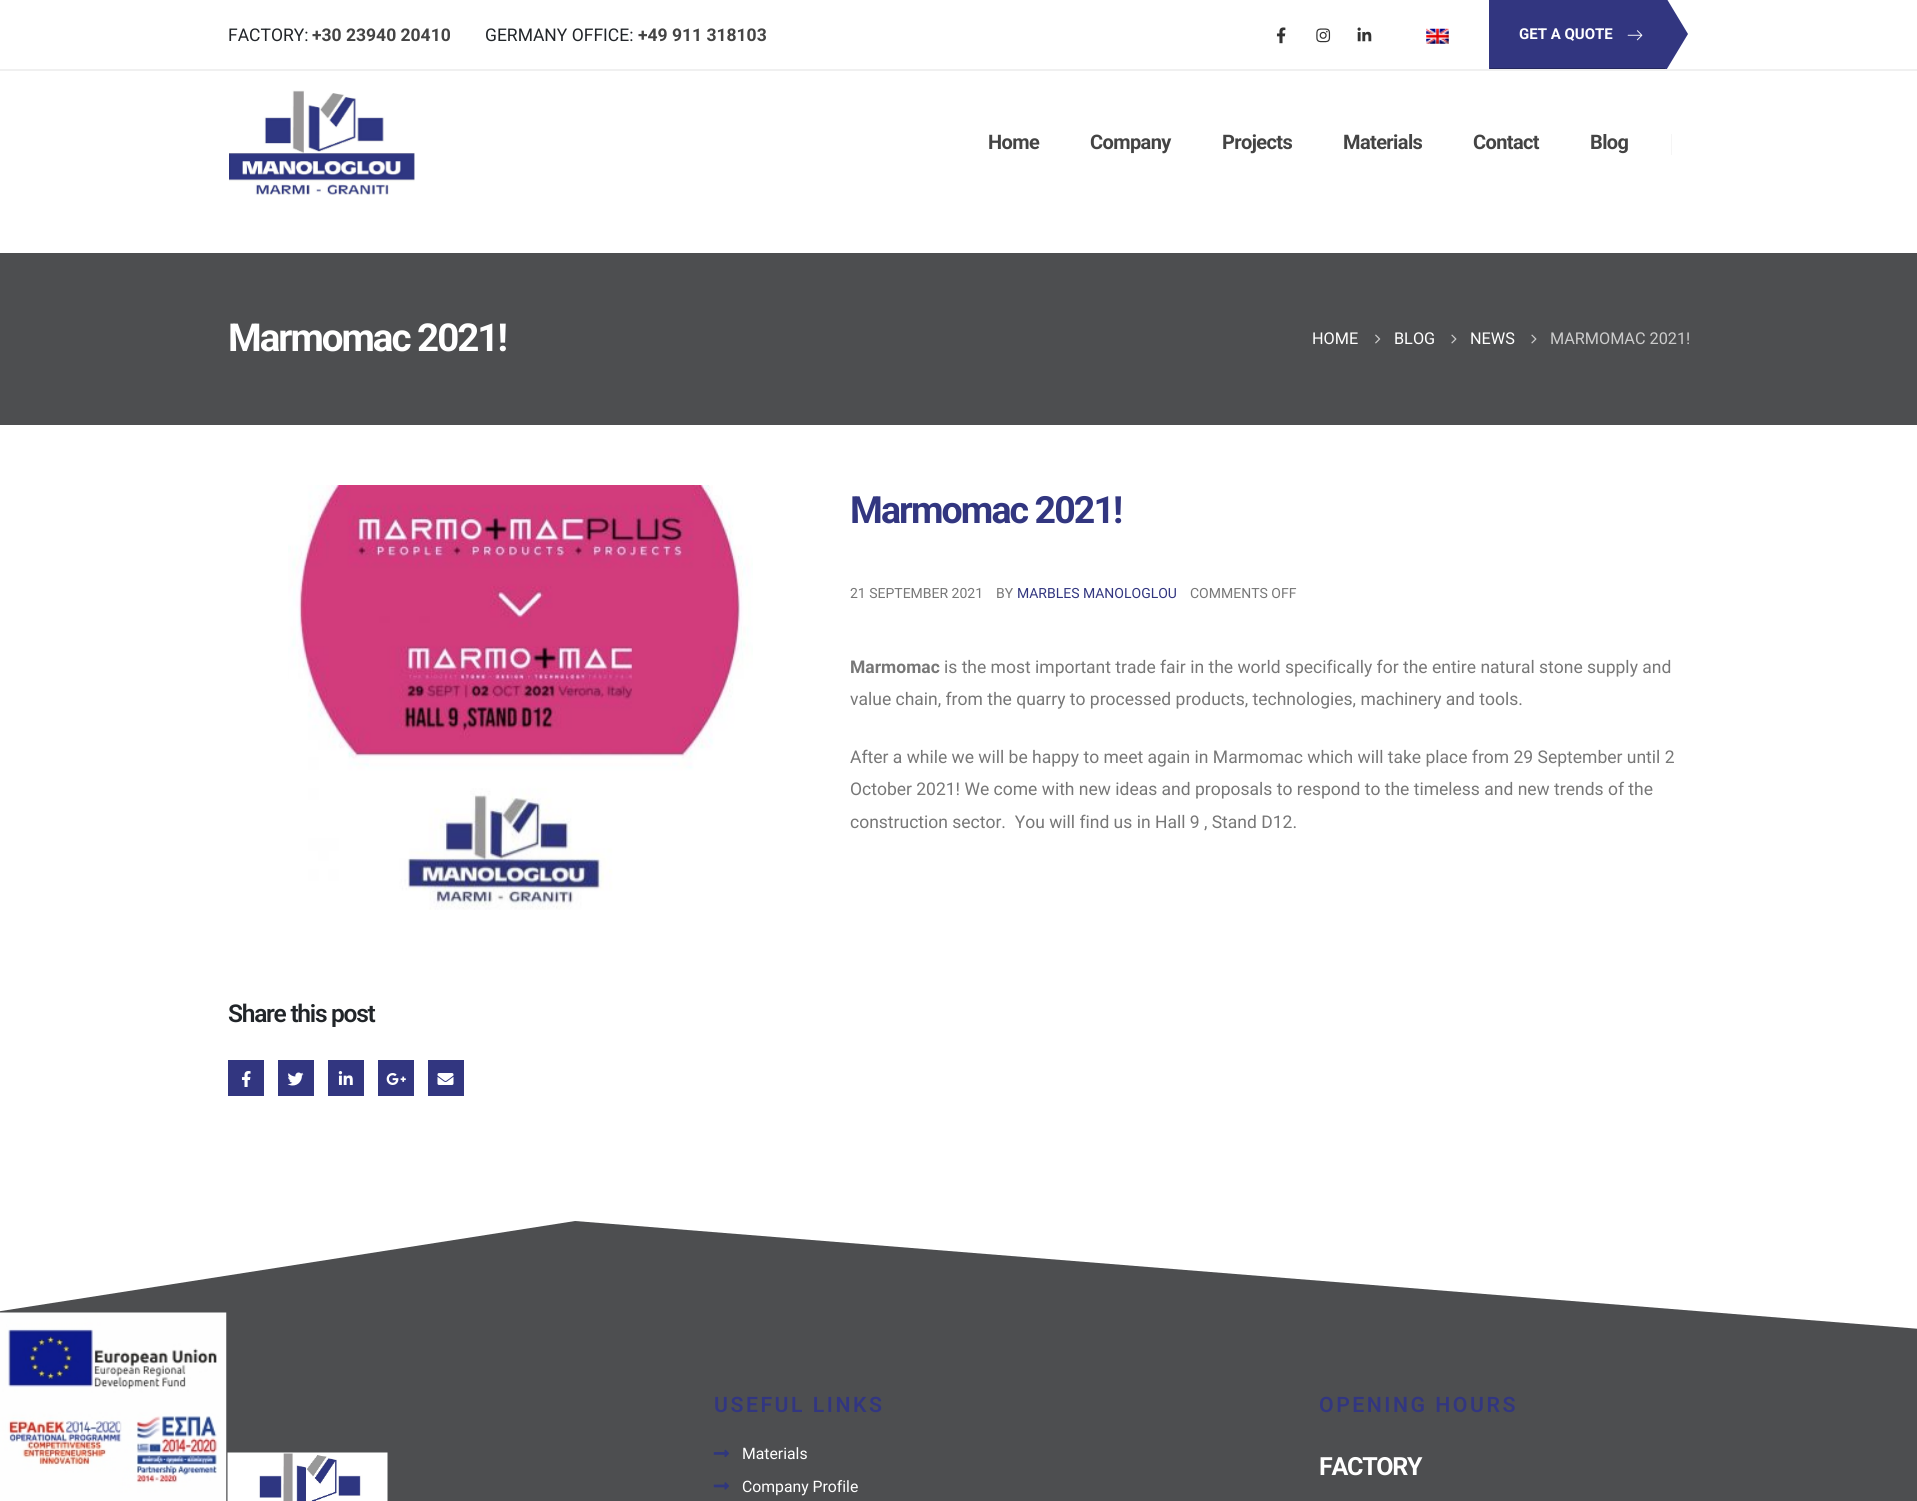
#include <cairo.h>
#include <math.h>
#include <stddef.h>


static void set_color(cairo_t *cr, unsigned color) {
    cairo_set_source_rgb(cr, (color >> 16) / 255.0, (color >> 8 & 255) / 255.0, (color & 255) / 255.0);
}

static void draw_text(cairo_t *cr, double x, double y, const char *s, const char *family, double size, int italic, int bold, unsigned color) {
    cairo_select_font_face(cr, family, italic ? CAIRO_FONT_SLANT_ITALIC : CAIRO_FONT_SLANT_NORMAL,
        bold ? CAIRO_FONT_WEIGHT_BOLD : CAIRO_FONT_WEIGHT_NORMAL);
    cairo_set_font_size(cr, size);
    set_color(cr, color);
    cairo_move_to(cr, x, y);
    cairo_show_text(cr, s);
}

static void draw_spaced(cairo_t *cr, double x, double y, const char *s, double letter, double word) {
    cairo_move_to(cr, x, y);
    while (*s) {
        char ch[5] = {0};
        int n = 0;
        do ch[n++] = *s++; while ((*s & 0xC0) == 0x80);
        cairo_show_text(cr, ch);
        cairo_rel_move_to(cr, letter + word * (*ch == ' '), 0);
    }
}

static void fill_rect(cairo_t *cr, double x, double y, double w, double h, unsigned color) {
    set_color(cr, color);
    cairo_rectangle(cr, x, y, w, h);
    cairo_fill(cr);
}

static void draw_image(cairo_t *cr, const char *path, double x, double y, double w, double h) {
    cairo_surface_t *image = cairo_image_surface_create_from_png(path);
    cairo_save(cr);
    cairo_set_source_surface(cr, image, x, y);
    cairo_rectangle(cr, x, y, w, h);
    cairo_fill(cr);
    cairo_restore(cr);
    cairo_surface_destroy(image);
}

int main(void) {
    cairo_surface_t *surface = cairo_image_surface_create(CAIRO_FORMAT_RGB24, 1917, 1501);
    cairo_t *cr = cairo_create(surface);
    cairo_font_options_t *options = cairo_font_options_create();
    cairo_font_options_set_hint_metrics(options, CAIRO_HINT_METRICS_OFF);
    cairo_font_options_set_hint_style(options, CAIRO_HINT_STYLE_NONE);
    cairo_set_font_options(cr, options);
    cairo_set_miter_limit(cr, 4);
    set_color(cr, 0xFFFFFF);
    cairo_paint(cr);
    fill_rect(cr, 0, 69, 1917, 2, 0xF0F0F0);
    draw_text(cr, 228, 41, "FACTORY:", "Roboto", 17.5, 0, 0, 0x212529);
    draw_text(cr, 312, 41, "+30 23940 20410", "Roboto", 17.5, 0, 1, 0x444444);
    draw_text(cr, 485, 41, "GERMANΥ OFFICE:", "Roboto", 17.5, 0, 0, 0x212529);
    draw_text(cr, 638, 41, "+49 911 318103", "Roboto", 17.5, 0, 1, 0x444444);
    draw_image(cr, "assets/img1.png", 1276, 27, 10, 17);
    draw_image(cr, "assets/img2.png", 1316, 28, 15, 15);
    draw_image(cr, "assets/img3.png", 1357, 27, 15, 15);
    draw_image(cr, "assets/img4.png", 1426, 28, 23, 16);
    cairo_save(cr);
    cairo_rectangle(cr, 1489, 0, 201, 69);
    cairo_clip(cr);
    set_color(cr, 0x323680);
    cairo_new_path(cr);
    cairo_move_to(cr, 1656, -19);
    cairo_line_to(cr, 1688, 34);
    cairo_line_to(cr, 1656, 87);
    cairo_line_to(cr, 1624, 34);
    cairo_close_path(cr);
    cairo_fill(cr);
    cairo_restore(cr);
    fill_rect(cr, 1490, 0, 155, 68, 0x323680);
    fill_rect(cr, 1489, 68, 176, 1, 0x24275C);
    fill_rect(cr, 1489, 0, 1, 69, 0x323680);
    draw_text(cr, 1519, 39, "GET A QUOTE", "Roboto", 15, 0, 1, 0xFFFFFF);
    draw_image(cr, "assets/img5.png", 1627, 30, 16, 11);
    draw_image(cr, "assets/img6.png", 229, 90, 186, 105);
    cairo_set_font_size(cr, 20);
    set_color(cr, 0x444444);
    draw_spaced(cr, 988, 149, "Home", -0.6, 0);
    draw_spaced(cr, 1090, 149, "Company", -0.6, 0);
    draw_spaced(cr, 1222, 149, "Projects", -0.6, 0);
    draw_spaced(cr, 1343, 149, "Materials", -0.6, 0);
    draw_spaced(cr, 1473, 149, "Contact", -0.6, 0);
    draw_spaced(cr, 1590, 149, "Blog", -0.6, 0);
    fill_rect(cr, 1671, 134, 1, 21, 0xF5F5F5);
    fill_rect(cr, 0, 1221, 1917, 280, 0x4D4E50);
    cairo_save(cr);
    cairo_rectangle(cr, 0, 1211, 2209, 150);
    cairo_clip(cr);
    set_color(cr, 0xFFFFFF);
    cairo_new_path(cr);
    cairo_move_to(cr, -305, 1359);
    cairo_line_to(cr, 575, 1221);
    cairo_line_to(cr, 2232, 1354);
    cairo_line_to(cr, 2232, 1192);
    cairo_line_to(cr, -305, 1192);
    cairo_close_path(cr);
    cairo_fill(cr);
    cairo_restore(cr);
    draw_image(cr, "assets/img7.png", 0, 1312, 227, 189);
    fill_rect(cr, 0, 253, 1917, 172, 0x4D4E50);
    cairo_set_font_size(cr, 38.5);
    set_color(cr, 0xFFFFFF);
    draw_spaced(cr, 228, 351, "Marmomac 2021!", -2, 0);
    draw_text(cr, 1312, 344, "HOME", "Roboto", 16.25, 0, 0, 0xFFFFFF);
    draw_image(cr, "assets/img8.png", 1375, 334, 6, 10);
    draw_text(cr, 1394, 344, "BLOG", "Roboto", 16.25, 0, 0, 0xFFFFFF);
    draw_image(cr, "assets/img9.png", 1451, 334, 6, 10);
    draw_text(cr, 1470, 344, "NEWS", "Roboto", 16.25, 0, 0, 0xFFFFFF);
    draw_image(cr, "assets/img9.png", 1531, 334, 6, 10);
    draw_text(cr, 1550, 344, "MARMOMAC 2021!", "Roboto", 16.25, 0, 0, 0xCCCCCC);
    draw_image(cr, "assets/img10.png", 288, 485, 465, 425);
    cairo_select_font_face(cr, "Roboto", CAIRO_FONT_SLANT_NORMAL, CAIRO_FONT_WEIGHT_BOLD);
    cairo_set_font_size(cr, 37.5);
    set_color(cr, 0x323680);
    draw_spaced(cr, 850, 523, "Marmomac 2021!", -1.9, 0);
    draw_text(cr, 850, 598, "21 SEPTEMBER 2021", "Roboto", 14, 0, 0, 0x777777);
    draw_text(cr, 996, 598, "BY", "Roboto", 14, 0, 0, 0x777777);
    draw_text(cr, 1017, 598, "MARBLES MANOLOGLOU", "Roboto", 14, 0, 0, 0x323680);
    draw_text(cr, 1190, 598, "COMMENTS OFF", "Roboto", 14, 0, 0, 0x777777);
    draw_text(cr, 850, 673, "Marmomac", "Roboto", 17.5, 0, 1, 0x777777);
    draw_text(cr, 944, 673, "is the most important trade fair in the world specifically for the entire natural stone supply and", "Roboto", 17.5, 0, 0, 0x777777);
    draw_text(cr, 850, 705, "value chain, from the quarry to processed products, technologies, machinery and tools.", "Roboto", 17.5, 0, 0, 0x777777);
    draw_text(cr, 850, 763, "After a while we will be happy to meet again in Marmomac which will take place from 29 September until 2", "Roboto", 17.5, 0, 0, 0x777777);
    draw_text(cr, 850, 795, "October 2021! We come with new ideas and proposals to respond to the timeless and new trends of the", "Roboto", 17.5, 0, 0, 0x777777);
    draw_text(cr, 850, 828, "construction sector.  You will find us in Hall 9 , Stand D12.", "Roboto", 17.5, 0, 0, 0x777777);
    cairo_select_font_face(cr, "Roboto SemiBold", CAIRO_FONT_SLANT_NORMAL, CAIRO_FONT_WEIGHT_NORMAL);
    cairo_set_font_size(cr, 24.5);
    set_color(cr, 0x212529);
    draw_spaced(cr, 228, 1022, "Share this post", -1.25, 0);
    fill_rect(cr, 228, 1060, 36, 36, 0x323680);
    draw_image(cr, "assets/img11.png", 241, 1071, 10, 16);
    fill_rect(cr, 278, 1060, 36, 36, 0x323680);
    draw_image(cr, "assets/img12.png", 287, 1072, 17, 14);
    fill_rect(cr, 328, 1060, 36, 36, 0x323680);
    draw_image(cr, "assets/img13.png", 338, 1071, 15, 14);
    fill_rect(cr, 378, 1060, 36, 36, 0x323680);
    draw_image(cr, "assets/img14.png", 386, 1073, 20, 12);
    fill_rect(cr, 428, 1060, 36, 36, 0x323680);
    draw_image(cr, "assets/img15.png", 437, 1073, 17, 12);
    draw_image(cr, "assets/img16.png", 227, 1452, 161, 49);
    cairo_set_font_size(cr, 21.25);
    draw_spaced(cr, 714, 1412, "USEFUL LINKS", 2.5, 0);
    draw_image(cr, "assets/img17.png", 713, 1449, 16, 9);
    draw_text(cr, 742, 1459, "Materials", "Roboto", 15.75, 0, 0, 0xFFFFFF);
    draw_image(cr, "assets/img18.png", 713, 1482, 16, 8);
    draw_text(cr, 742, 1492, "Company Profile", "Roboto", 15.75, 0, 0, 0xFFFFFF);
    cairo_select_font_face(cr, "Roboto SemiBold", CAIRO_FONT_SLANT_NORMAL, CAIRO_FONT_WEIGHT_NORMAL);
    cairo_set_font_size(cr, 21.25);
    set_color(cr, 0x323680);
    draw_spaced(cr, 1319, 1412, "OPENING HOURS", 2.5, 0);
    cairo_select_font_face(cr, "Roboto", CAIRO_FONT_SLANT_NORMAL, CAIRO_FONT_WEIGHT_BOLD);
    cairo_set_font_size(cr, 25);
    set_color(cr, 0xFFFFFF);
    draw_spaced(cr, 1319, 1475, "FACTORY", -1.25, 0);
    cairo_surface_write_to_png(surface, "output.png");
    cairo_font_options_destroy(options);
    cairo_destroy(cr);
    cairo_surface_destroy(surface);
    return 0;
}
